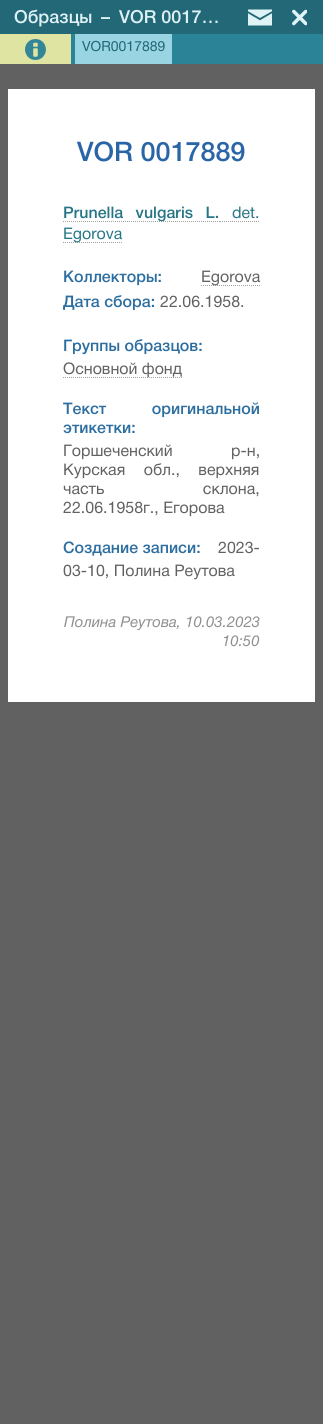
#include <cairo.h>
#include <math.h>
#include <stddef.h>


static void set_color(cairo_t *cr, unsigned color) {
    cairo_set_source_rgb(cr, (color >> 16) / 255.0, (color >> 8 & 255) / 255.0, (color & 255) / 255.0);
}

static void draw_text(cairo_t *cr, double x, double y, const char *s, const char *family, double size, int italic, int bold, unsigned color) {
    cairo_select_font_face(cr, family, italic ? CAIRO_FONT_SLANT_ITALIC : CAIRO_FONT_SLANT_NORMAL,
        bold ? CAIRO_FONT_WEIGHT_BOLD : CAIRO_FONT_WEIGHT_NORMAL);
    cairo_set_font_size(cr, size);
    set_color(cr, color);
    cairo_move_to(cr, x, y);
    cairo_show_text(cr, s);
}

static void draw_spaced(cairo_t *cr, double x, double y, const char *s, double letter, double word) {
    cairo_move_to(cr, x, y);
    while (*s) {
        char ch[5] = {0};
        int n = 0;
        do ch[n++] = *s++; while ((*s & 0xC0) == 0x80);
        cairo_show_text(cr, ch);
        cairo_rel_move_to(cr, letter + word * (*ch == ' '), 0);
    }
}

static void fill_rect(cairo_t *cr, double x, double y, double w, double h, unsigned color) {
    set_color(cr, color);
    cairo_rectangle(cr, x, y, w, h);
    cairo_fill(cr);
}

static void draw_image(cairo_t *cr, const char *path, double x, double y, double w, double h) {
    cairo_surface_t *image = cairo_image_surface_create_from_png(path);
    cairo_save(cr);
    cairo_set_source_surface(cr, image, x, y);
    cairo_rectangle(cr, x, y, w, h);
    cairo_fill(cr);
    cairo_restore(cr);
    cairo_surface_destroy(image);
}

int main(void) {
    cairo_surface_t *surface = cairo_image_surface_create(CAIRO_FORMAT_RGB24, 323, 1424);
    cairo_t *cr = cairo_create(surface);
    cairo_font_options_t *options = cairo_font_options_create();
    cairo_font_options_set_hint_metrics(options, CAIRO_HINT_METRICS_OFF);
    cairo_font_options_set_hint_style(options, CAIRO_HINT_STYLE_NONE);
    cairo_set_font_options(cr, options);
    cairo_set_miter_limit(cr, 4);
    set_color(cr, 0x226877);
    cairo_paint(cr);
    draw_text(cr, 14, 23, "Образцы", "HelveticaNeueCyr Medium", 18, 0, 0, 0xDEF1F6);
    draw_text(cr, 101, 23, "–", "HelveticaNeueCyr Medium", 18, 0, 0, 0xDEF1F6);
    draw_text(cr, 119, 23, "VOR 0017…", "HelveticaNeueCyr Medium", 18, 0, 0, 0xDEF1F6);
    draw_image(cr, "assets/img1.png", 248, 9, 24, 17);
    draw_image(cr, "assets/img2.png", 292, 9, 15, 17);
    fill_rect(cr, 172, 34, 151, 30, 0x2B8397);
    fill_rect(cr, 0, 34, 71, 30, 0xDFE4A2);
    fill_rect(cr, 71, 34, 4, 30, 0x2B8397);
    draw_image(cr, "assets/img3.png", 25, 39, 21, 21);
    fill_rect(cr, 75, 34, 97, 30, 0x98D4E2);
    draw_text(cr, 82, 51, "VOR0017889", "HelveticaNeueCyr", 14, 0, 0, 0x226777);
    fill_rect(cr, 0, 64, 323, 1360, 0x616161);
    fill_rect(cr, 8, 89, 307, 613, 0xFFFFFF);
    draw_text(cr, 77, 161, "VOR 0017889", "HelveticaNeueCyr Medium", 27, 0, 0, 0x2A66A7);
    cairo_new_path(cr);
    cairo_move_to(cr, 63, 221.5);
    cairo_line_to(cr, 220, 221.5);
    set_color(cr, 0xA1A1A1);
    cairo_set_line_width(cr, 1);
    cairo_set_dash(cr, (double[]){1, 1}, 2, 0);
    cairo_stroke(cr);
    cairo_set_font_size(cr, 16);
    set_color(cr, 0x267586);
    draw_spaced(cr, 63, 218, "Prunella vulgaris L.", 0, 8);
    cairo_new_path(cr);
    cairo_move_to(cr, 220, 221.5);
    cairo_line_to(cr, 260, 221.5);
    set_color(cr, 0xA1A1A1);
    cairo_stroke(cr);
    draw_text(cr, 232, 218, "det.", "HelveticaNeueCyr", 16, 0, 0, 0x267586);
    cairo_new_path(cr);
    cairo_move_to(cr, 63, 242.5);
    cairo_line_to(cr, 122, 242.5);
    set_color(cr, 0xA1A1A1);
    cairo_stroke(cr);
    draw_text(cr, 63, 239, "Egorova", "HelveticaNeueCyr", 16, 0, 0, 0x267586);
    draw_text(cr, 63, 282, "Коллекторы:", "HelveticaNeueCyr Medium", 16, 0, 0, 0x2C6EA0);
    cairo_new_path(cr);
    cairo_move_to(cr, 201, 285.5);
    cairo_line_to(cr, 260, 285.5);
    set_color(cr, 0xA1A1A1);
    cairo_stroke(cr);
    draw_text(cr, 201, 282, "Egorova", "HelveticaNeueCyr", 16, 0, 0, 0x616161);
    draw_text(cr, 63, 307, "Дата сбора:", "HelveticaNeueCyr Medium", 16, 0, 0, 0x2C6EA0);
    draw_text(cr, 160, 307, "22.06.1958.", "HelveticaNeueCyr", 16, 0, 0, 0x616161);
    draw_text(cr, 63, 351, "Группы образцов:", "HelveticaNeueCyr Medium", 16, 0, 0, 0x2C6EA0);
    cairo_new_path(cr);
    cairo_move_to(cr, 63, 377.5);
    cairo_line_to(cr, 182, 377.5);
    set_color(cr, 0xA1A1A1);
    cairo_stroke(cr);
    draw_text(cr, 63, 374, "Основной фонд", "HelveticaNeueCyr", 16, 0, 0, 0x616161);
    cairo_select_font_face(cr, "HelveticaNeueCyr Medium", CAIRO_FONT_SLANT_NORMAL, CAIRO_FONT_WEIGHT_NORMAL);
    set_color(cr, 0x2C6EA0);
    draw_spaced(cr, 63, 414, "Текст оригинальной", 0, 41);
    draw_text(cr, 63, 433, "этикетки:", "HelveticaNeueCyr Medium", 16, 0, 0, 0x2C6EA0);
    cairo_select_font_face(cr, "HelveticaNeueCyr", CAIRO_FONT_SLANT_NORMAL, CAIRO_FONT_WEIGHT_NORMAL);
    set_color(cr, 0x616161);
    draw_spaced(cr, 63, 456, "Горшеченский р-н,", 0, 54);
    draw_spaced(cr, 63, 475, "Курская обл., верхняя", 0, 14);
    draw_spaced(cr, 63, 494, "часть склона,", 0, 94);
    draw_text(cr, 63, 513, "22.06.1958г., Егорова", "HelveticaNeueCyr", 16, 0, 0, 0x616161);
    draw_text(cr, 63, 553, "Создание записи:", "HelveticaNeueCyr Medium", 16, 0, 0, 0x2C6EA0);
    draw_text(cr, 218, 553, "2023-", "HelveticaNeueCyr", 16, 0, 0, 0x616161);
    draw_text(cr, 63, 576, "03-10, Полина Реутова", "HelveticaNeueCyr", 16, 0, 0, 0x616161);
    draw_text(cr, 64, 627, "Полина Реутова, 10.03.2023", "HelveticaNeueCyr Medium", 15, 1, 0, 0x8F8F8F);
    draw_text(cr, 222, 646, "10:50", "HelveticaNeueCyr Medium", 15, 1, 0, 0x8F8F8F);
    cairo_surface_write_to_png(surface, "output.png");
    cairo_font_options_destroy(options);
    cairo_destroy(cr);
    cairo_surface_destroy(surface);
    return 0;
}
